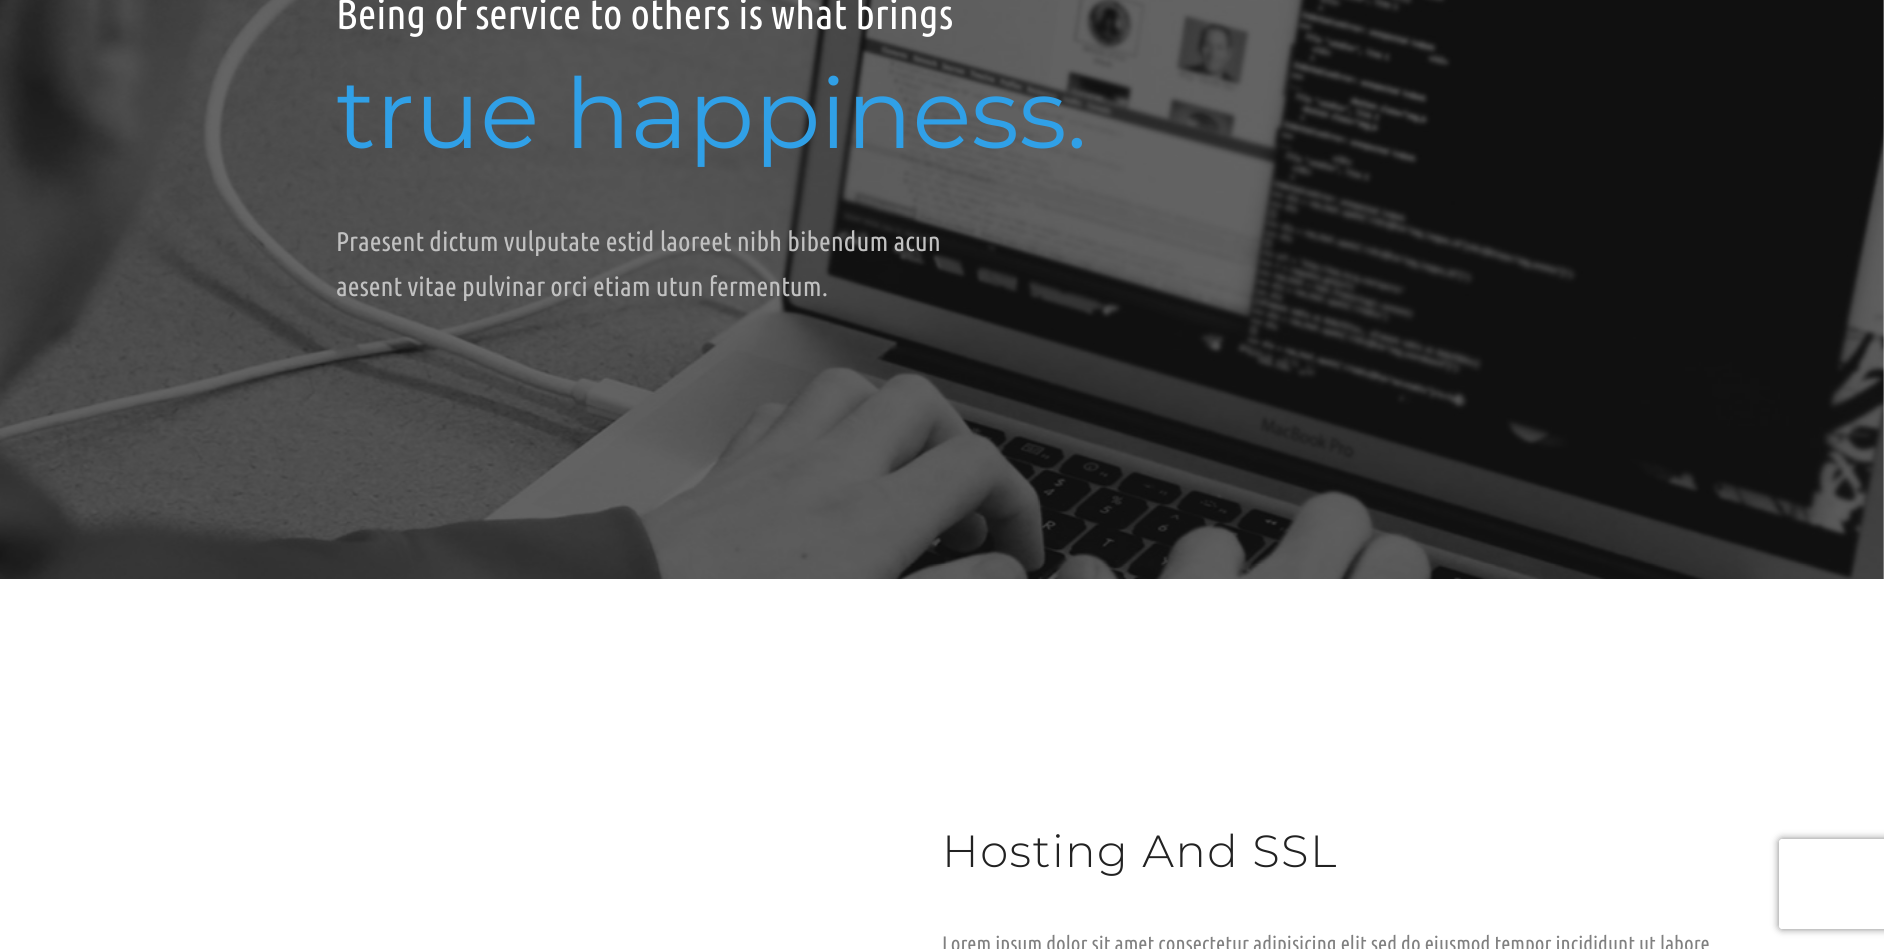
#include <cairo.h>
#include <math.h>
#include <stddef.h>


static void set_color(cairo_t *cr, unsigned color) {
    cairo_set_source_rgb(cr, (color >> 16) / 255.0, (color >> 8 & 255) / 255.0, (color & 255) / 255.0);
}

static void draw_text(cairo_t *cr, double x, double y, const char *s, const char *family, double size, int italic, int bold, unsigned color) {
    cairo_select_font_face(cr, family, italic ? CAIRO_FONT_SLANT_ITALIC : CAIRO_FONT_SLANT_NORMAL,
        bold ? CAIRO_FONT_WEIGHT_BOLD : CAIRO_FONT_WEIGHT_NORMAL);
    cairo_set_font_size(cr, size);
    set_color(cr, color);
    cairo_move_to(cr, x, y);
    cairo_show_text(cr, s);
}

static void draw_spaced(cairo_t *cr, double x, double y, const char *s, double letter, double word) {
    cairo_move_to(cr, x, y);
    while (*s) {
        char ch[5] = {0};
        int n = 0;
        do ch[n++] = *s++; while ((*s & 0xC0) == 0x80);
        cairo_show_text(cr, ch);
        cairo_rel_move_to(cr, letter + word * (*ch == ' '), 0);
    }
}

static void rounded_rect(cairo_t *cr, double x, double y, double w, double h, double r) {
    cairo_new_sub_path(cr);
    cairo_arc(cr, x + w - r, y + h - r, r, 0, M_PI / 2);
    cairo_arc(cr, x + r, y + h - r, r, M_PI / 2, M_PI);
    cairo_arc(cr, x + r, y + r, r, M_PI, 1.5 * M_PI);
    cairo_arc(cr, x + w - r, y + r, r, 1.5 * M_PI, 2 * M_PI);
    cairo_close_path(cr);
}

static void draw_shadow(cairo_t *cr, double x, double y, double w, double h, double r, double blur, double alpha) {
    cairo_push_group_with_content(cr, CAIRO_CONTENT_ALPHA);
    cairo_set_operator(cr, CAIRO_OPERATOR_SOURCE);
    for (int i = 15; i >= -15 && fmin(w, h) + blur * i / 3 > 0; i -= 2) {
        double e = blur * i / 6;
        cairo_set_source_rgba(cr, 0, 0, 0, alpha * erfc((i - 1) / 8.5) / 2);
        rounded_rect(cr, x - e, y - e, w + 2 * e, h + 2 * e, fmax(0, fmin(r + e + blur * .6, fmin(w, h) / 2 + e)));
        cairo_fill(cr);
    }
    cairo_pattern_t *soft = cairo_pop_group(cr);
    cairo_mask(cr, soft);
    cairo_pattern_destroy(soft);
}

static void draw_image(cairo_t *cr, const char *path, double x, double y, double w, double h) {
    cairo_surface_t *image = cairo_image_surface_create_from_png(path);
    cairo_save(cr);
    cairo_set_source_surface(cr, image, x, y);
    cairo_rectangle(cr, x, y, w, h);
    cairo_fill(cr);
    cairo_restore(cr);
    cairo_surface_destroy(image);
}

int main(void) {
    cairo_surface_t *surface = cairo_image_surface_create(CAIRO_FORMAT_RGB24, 1884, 949);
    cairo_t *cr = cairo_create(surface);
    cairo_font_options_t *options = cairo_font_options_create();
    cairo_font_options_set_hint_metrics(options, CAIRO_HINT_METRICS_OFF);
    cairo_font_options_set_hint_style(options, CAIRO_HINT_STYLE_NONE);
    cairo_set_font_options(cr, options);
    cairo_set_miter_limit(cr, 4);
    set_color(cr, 0xFFFFFF);
    cairo_paint(cr);
    draw_image(cr, "assets/img1.png", 0, 0, 1884, 579);
    draw_text(cr, 336, 29, "Being of service to others is what brings", "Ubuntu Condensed", 42, 0, 0, 0xFFFFFF);
    draw_text(cr, 336, 148, "true happiness.", "Montserrat", 97.5, 0, 0, 0x30A0E7);
    draw_text(cr, 336, 251, "Praesent dictum vulputate estid laoreet nibh bibendum acun", "Ubuntu Condensed", 27, 0, 0, 0xC1C1C1);
    draw_text(cr, 336, 296, "aesent vitae pulvinar orci etiam utun fermentum.", "Ubuntu Condensed", 27, 0, 0, 0xC1C1C1);
    cairo_select_font_face(cr, "Montserrat Light", CAIRO_FONT_SLANT_NORMAL, CAIRO_FONT_WEIGHT_NORMAL);
    cairo_set_font_size(cr, 45);
    set_color(cr, 0x222222);
    draw_spaced(cr, 942, 867, "Hosting And SSL", 1.5, 0);
    draw_text(cr, 942, 951, "Lorem ipsum dolor sit amet consectetur adipisicing elit sed do eiusmod tempor incididunt ut labore", "Ubuntu Condensed", 21, 0, 0, 0x808080);
    cairo_save(cr);
    cairo_set_fill_rule(cr, CAIRO_FILL_RULE_EVEN_ODD);
    cairo_new_path(cr);
    cairo_move_to(cr, 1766, 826);
    cairo_line_to(cr, 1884, 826);
    cairo_line_to(cr, 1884, 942);
    cairo_line_to(cr, 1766, 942);
    cairo_close_path(cr);
    cairo_move_to(cr, 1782, 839);
    cairo_line_to(cr, 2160, 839);
    cairo_curve_to(cr, 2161.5, 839, 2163, 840.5, 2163, 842);
    cairo_line_to(cr, 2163, 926);
    cairo_curve_to(cr, 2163, 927.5, 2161.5, 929, 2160, 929);
    cairo_line_to(cr, 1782, 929);
    cairo_curve_to(cr, 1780.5, 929, 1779, 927.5, 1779, 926);
    cairo_line_to(cr, 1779, 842);
    cairo_curve_to(cr, 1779, 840.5, 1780.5, 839, 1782, 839);
    cairo_close_path(cr);
    cairo_clip(cr);
    set_color(cr, 0x808080);
    draw_shadow(cr, 1779, 839, 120, 90, 3, 4, 1);
    cairo_restore(cr);
    cairo_surface_write_to_png(surface, "output.png");
    cairo_font_options_destroy(options);
    cairo_destroy(cr);
    cairo_surface_destroy(surface);
    return 0;
}
